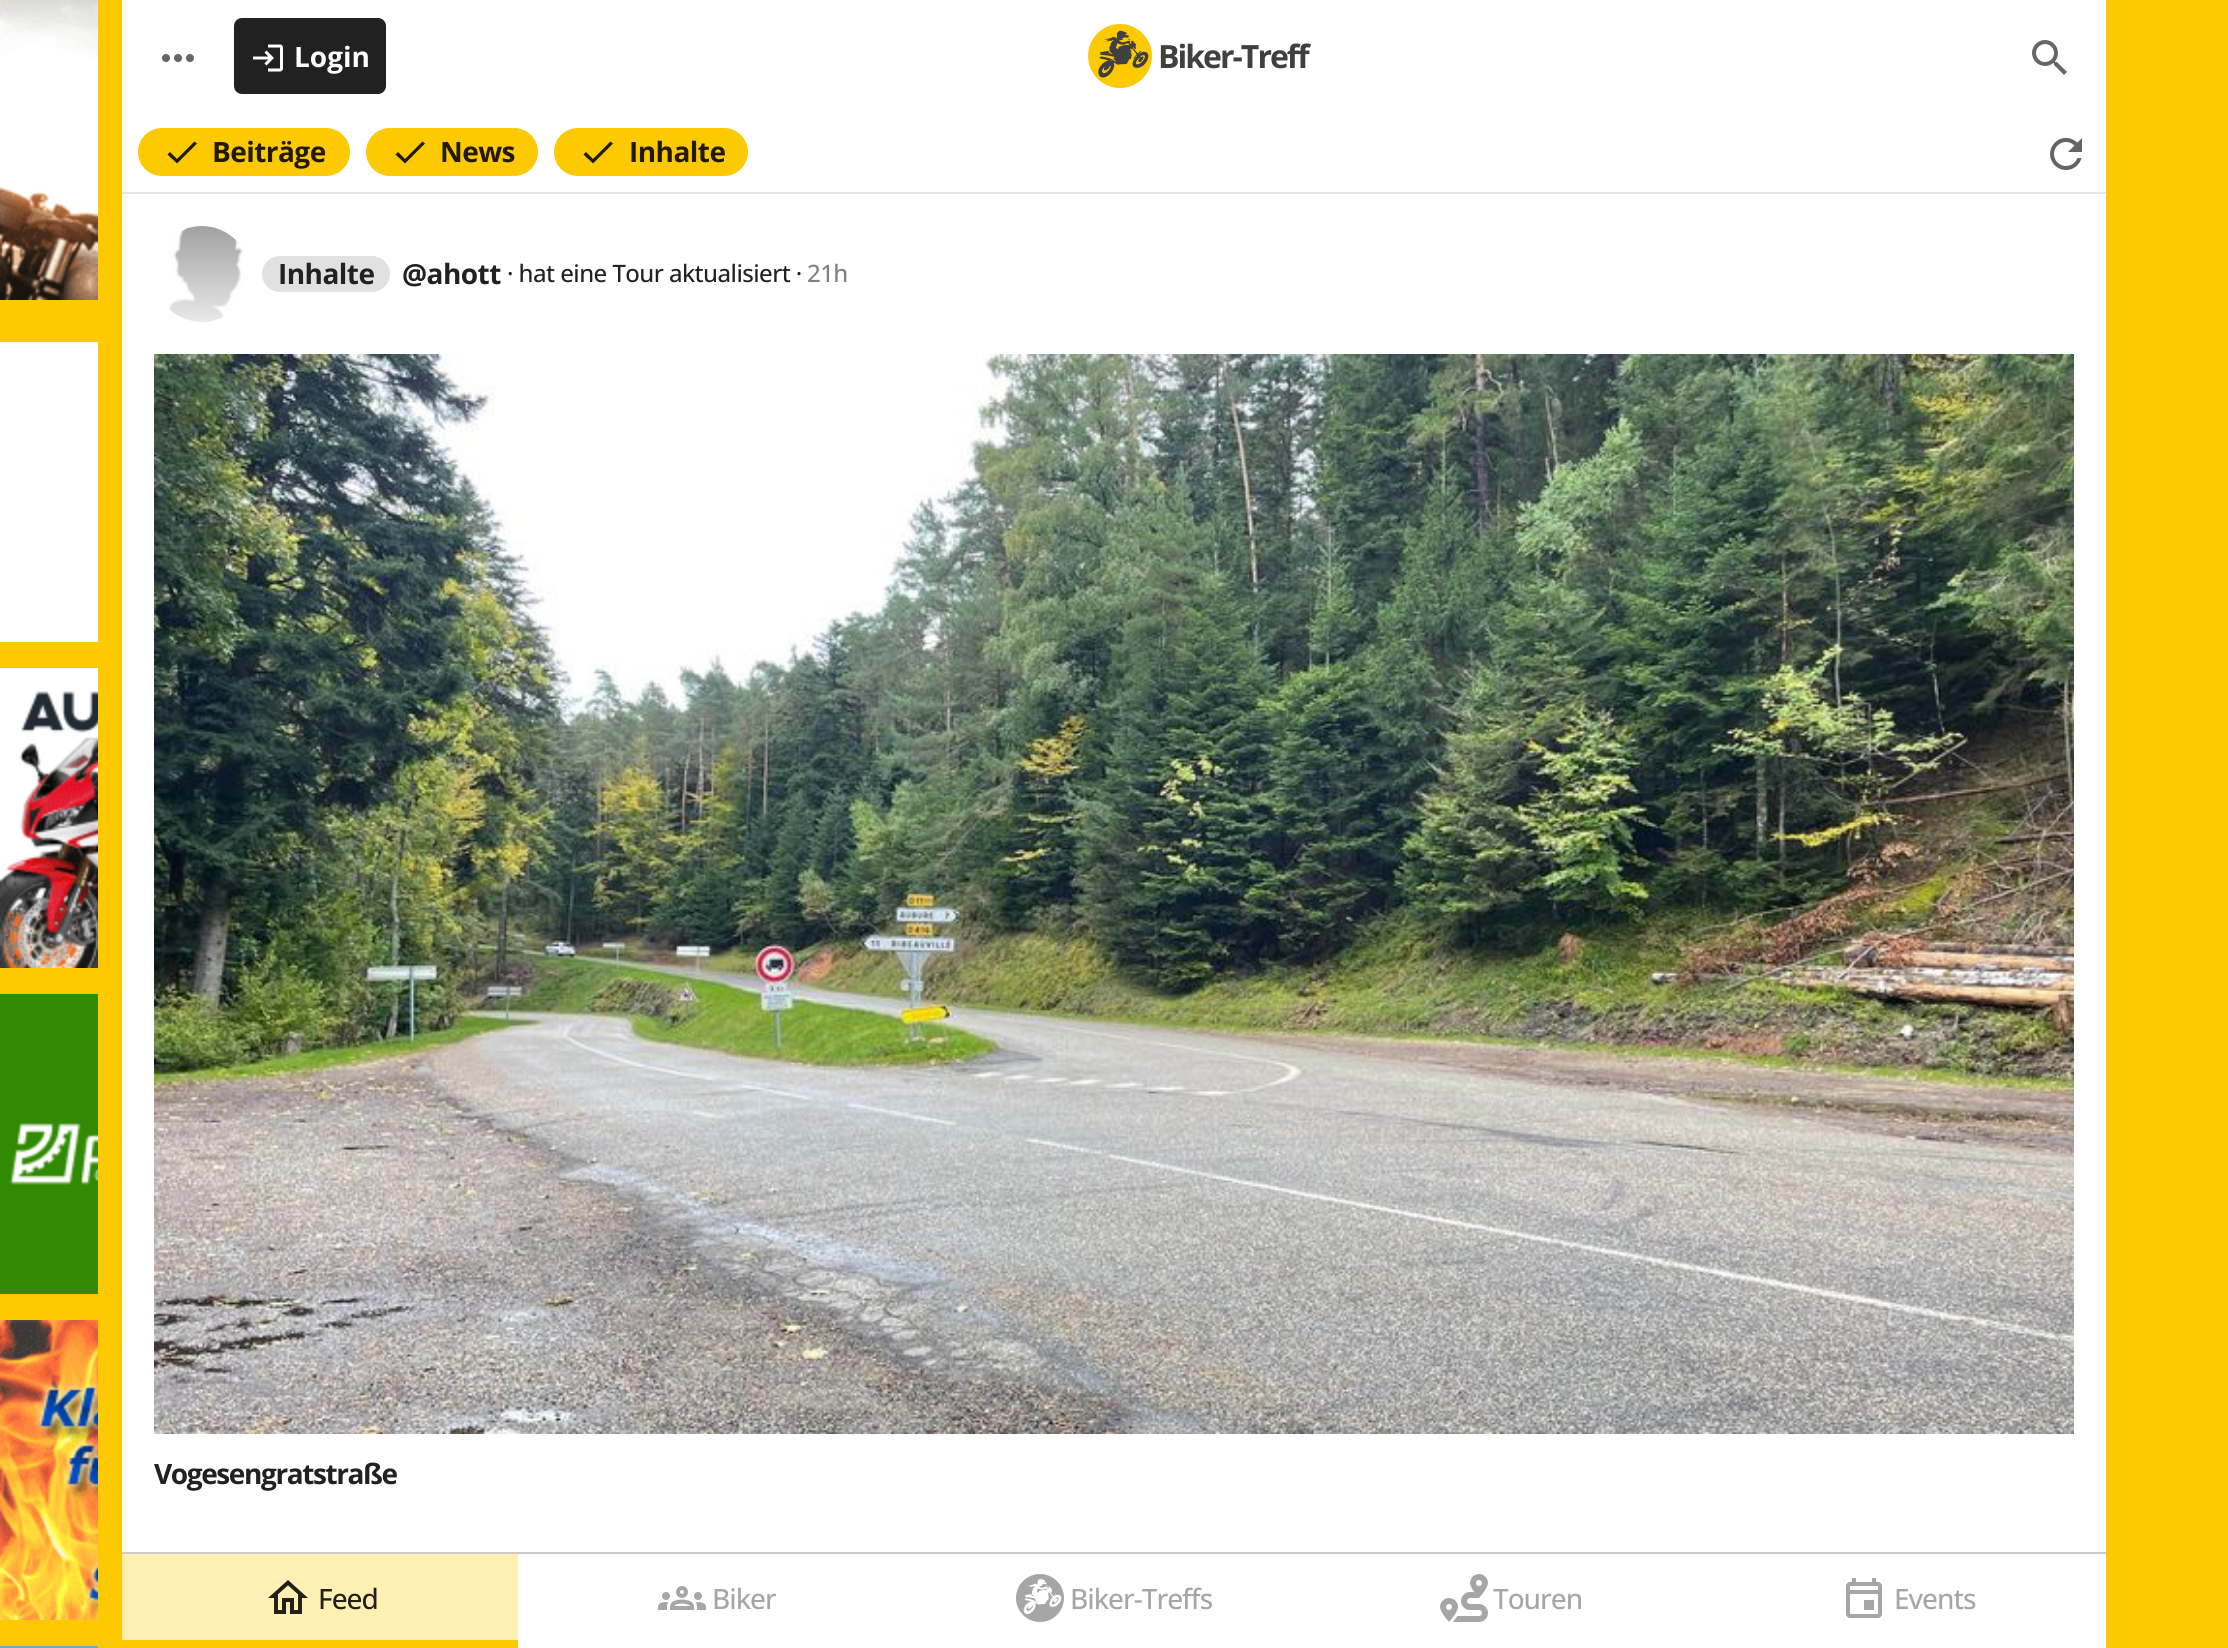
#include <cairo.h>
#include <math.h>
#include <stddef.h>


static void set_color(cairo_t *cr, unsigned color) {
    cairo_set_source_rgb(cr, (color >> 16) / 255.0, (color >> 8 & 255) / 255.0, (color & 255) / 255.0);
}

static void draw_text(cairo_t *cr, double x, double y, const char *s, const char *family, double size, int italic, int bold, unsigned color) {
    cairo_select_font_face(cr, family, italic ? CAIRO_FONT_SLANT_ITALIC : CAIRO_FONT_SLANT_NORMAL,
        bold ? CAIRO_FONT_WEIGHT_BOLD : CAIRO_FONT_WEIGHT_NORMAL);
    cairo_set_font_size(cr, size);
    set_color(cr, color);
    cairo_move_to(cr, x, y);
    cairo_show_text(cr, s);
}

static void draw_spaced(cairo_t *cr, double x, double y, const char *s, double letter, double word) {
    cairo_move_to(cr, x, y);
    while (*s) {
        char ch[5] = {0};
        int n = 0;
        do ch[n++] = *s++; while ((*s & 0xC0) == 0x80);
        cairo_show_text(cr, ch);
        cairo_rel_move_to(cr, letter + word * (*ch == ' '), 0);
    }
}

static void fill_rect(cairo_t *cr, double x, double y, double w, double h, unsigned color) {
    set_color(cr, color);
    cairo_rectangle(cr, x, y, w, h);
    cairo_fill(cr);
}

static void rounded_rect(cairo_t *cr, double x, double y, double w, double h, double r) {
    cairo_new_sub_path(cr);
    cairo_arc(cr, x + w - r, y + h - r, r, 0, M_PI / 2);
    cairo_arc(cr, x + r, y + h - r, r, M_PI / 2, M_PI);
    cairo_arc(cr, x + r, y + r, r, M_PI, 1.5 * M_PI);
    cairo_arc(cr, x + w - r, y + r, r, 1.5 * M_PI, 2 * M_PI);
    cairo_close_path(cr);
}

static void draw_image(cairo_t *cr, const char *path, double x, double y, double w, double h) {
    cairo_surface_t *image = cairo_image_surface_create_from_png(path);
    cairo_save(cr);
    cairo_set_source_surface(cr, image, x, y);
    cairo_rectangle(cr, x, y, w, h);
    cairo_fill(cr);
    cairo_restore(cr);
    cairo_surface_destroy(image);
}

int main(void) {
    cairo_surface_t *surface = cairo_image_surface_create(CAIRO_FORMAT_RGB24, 2228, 1648);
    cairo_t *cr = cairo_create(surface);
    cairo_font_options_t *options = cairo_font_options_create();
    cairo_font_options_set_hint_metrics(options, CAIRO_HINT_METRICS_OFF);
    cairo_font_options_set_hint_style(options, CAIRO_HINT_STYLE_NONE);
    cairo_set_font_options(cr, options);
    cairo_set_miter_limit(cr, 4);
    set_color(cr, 0xFDCA02);
    cairo_paint(cr);
    draw_image(cr, "assets/img1.png", 0, 0, 98, 300);
    fill_rect(cr, 0, 342, 98, 300, 0xFFFFFF);
    draw_image(cr, "assets/img2.png", 0, 668, 98, 300);
    draw_image(cr, "assets/img3.png", 0, 994, 98, 300);
    draw_image(cr, "assets/img4.png", 0, 1320, 98, 300);
    fill_rect(cr, 0, 1646, 98, 2, 0x7CA3C8);
    fill_rect(cr, 122, 0, 1984, 192, 0xFFFFFF);
    draw_image(cr, "assets/img5.png", 162, 54, 32, 8);
    set_color(cr, 0x212121);
    rounded_rect(cr, 234, 18, 152, 76, 8);
    cairo_fill(cr);
    draw_image(cr, "assets/img6.png", 253, 44, 30, 28);
    draw_text(cr, 294, 67, "Login", "Open Sans", 28, 0, 1, 0xFFFFFF);
    draw_image(cr, "assets/img7.png", 1088, 24, 64, 64);
    cairo_set_font_size(cr, 32);
    set_color(cr, 0x404040);
    draw_spaced(cr, 1158, 68, "Biker-Treff", -2, 0);
    draw_image(cr, "assets/img8.png", 2032, 40, 35, 35);
    fill_rect(cr, 122, 192, 1984, 2, 0xE6E6E6);
    set_color(cr, 0xFDCA02);
    rounded_rect(cr, 138, 128, 212, 48, 24);
    cairo_fill(cr);
    set_color(cr, 0x211A00);
    cairo_new_path(cr);
    cairo_move_to(cr, 177, 159);
    cairo_line_to(cr, 170, 152);
    cairo_line_to(cr, 167.5, 154.5);
    cairo_line_to(cr, 177, 163.5);
    cairo_line_to(cr, 197, 143.5);
    cairo_line_to(cr, 194.5, 141.5);
    cairo_close_path(cr);
    cairo_fill(cr);
    cairo_set_font_size(cr, 28);
    draw_spaced(cr, 212, 162, "Beiträge", -0.55, 0);
    set_color(cr, 0xFDCA02);
    rounded_rect(cr, 366, 128, 172, 48, 24);
    cairo_fill(cr);
    set_color(cr, 0x211A00);
    cairo_new_path(cr);
    cairo_move_to(cr, 405, 159);
    cairo_line_to(cr, 398, 152);
    cairo_line_to(cr, 395.5, 154.5);
    cairo_line_to(cr, 405, 163.5);
    cairo_line_to(cr, 425, 143.5);
    cairo_line_to(cr, 422.5, 141.5);
    cairo_close_path(cr);
    cairo_fill(cr);
    draw_spaced(cr, 440, 162, "News", -0.55, 0);
    set_color(cr, 0xFDCA02);
    rounded_rect(cr, 554, 128, 194, 48, 24);
    cairo_fill(cr);
    set_color(cr, 0x211A00);
    cairo_new_path(cr);
    cairo_move_to(cr, 593, 159);
    cairo_line_to(cr, 586, 152);
    cairo_line_to(cr, 583.5, 154.5);
    cairo_line_to(cr, 593, 163.5);
    cairo_line_to(cr, 613, 143.5);
    cairo_line_to(cr, 610.5, 141.5);
    cairo_close_path(cr);
    cairo_fill(cr);
    draw_spaced(cr, 629, 162, "Inhalte", -0.55, 0);
    draw_image(cr, "assets/img9.png", 2050, 138, 32, 32);
    fill_rect(cr, 122, 194, 1984, 1358, 0xFFFFFF);
    draw_image(cr, "assets/img10.png", 169, 226, 74, 96);
    set_color(cr, 0xE1E1E1);
    rounded_rect(cr, 262, 256, 128, 36, 18);
    cairo_fill(cr);
    set_color(cr, 0x212121);
    draw_spaced(cr, 278, 284, "Inhalte", -0.55, 0);
    draw_spaced(cr, 402, 284, "@ahott", -0.55, 0);
    cairo_select_font_face(cr, "Open Sans Medium", CAIRO_FONT_SLANT_NORMAL, CAIRO_FONT_WEIGHT_NORMAL);
    cairo_set_font_size(cr, 24);
    draw_spaced(cr, 507, 282, "· hat eine Tour aktualisiert ·", -0.55, 0);
    set_color(cr, 0x808080);
    draw_spaced(cr, 807, 282, "21h", -0.55, 0);
    draw_image(cr, "assets/img11.png", 154, 354, 1920, 1080);
    cairo_select_font_face(cr, "Open Sans", CAIRO_FONT_SLANT_NORMAL, CAIRO_FONT_WEIGHT_BOLD);
    cairo_set_font_size(cr, 28);
    set_color(cr, 0x212121);
    draw_spaced(cr, 154, 1484, "Vogesengratstraße", -1.4, 0);
    fill_rect(cr, 518, 1554, 1588, 94, 0xFFFFFF);
    fill_rect(cr, 122, 1552, 1984, 2, 0xCCCCCC);
    fill_rect(cr, 122, 1554, 396, 86, 0xFEEFB3);
    draw_image(cr, "assets/img12.png", 268, 1580, 40, 34);
    cairo_select_font_face(cr, "Open Sans Medium", CAIRO_FONT_SLANT_NORMAL, CAIRO_FONT_WEIGHT_NORMAL);
    set_color(cr, 0x211F17);
    draw_spaced(cr, 318, 1609, "Feed", -1, 0);
    draw_image(cr, "assets/img13.png", 658, 1586, 48, 24);
    cairo_save(cr);
    cairo_rectangle(cr, 706, 1562, 70, 72);
    cairo_clip(cr);
    set_color(cr, 0xA6A6A6);
    draw_spaced(cr, 712, 1609, "Biker", -1, 0);
    cairo_restore(cr);
    draw_image(cr, "assets/img14.png", 1016, 1574, 48, 48);
    set_color(cr, 0xA6A6A6);
    draw_spaced(cr, 1070, 1609, "Biker-Treffs", -1, 0);
    draw_image(cr, "assets/img15.png", 1440, 1574, 48, 48);
    draw_spaced(cr, 1493, 1609, "Touren", -1, 0);
    draw_image(cr, "assets/img16.png", 1846, 1578, 36, 40);
    draw_spaced(cr, 1894, 1609, "Events", -1, 0);
    cairo_surface_write_to_png(surface, "output.png");
    cairo_font_options_destroy(options);
    cairo_destroy(cr);
    cairo_surface_destroy(surface);
    return 0;
}
